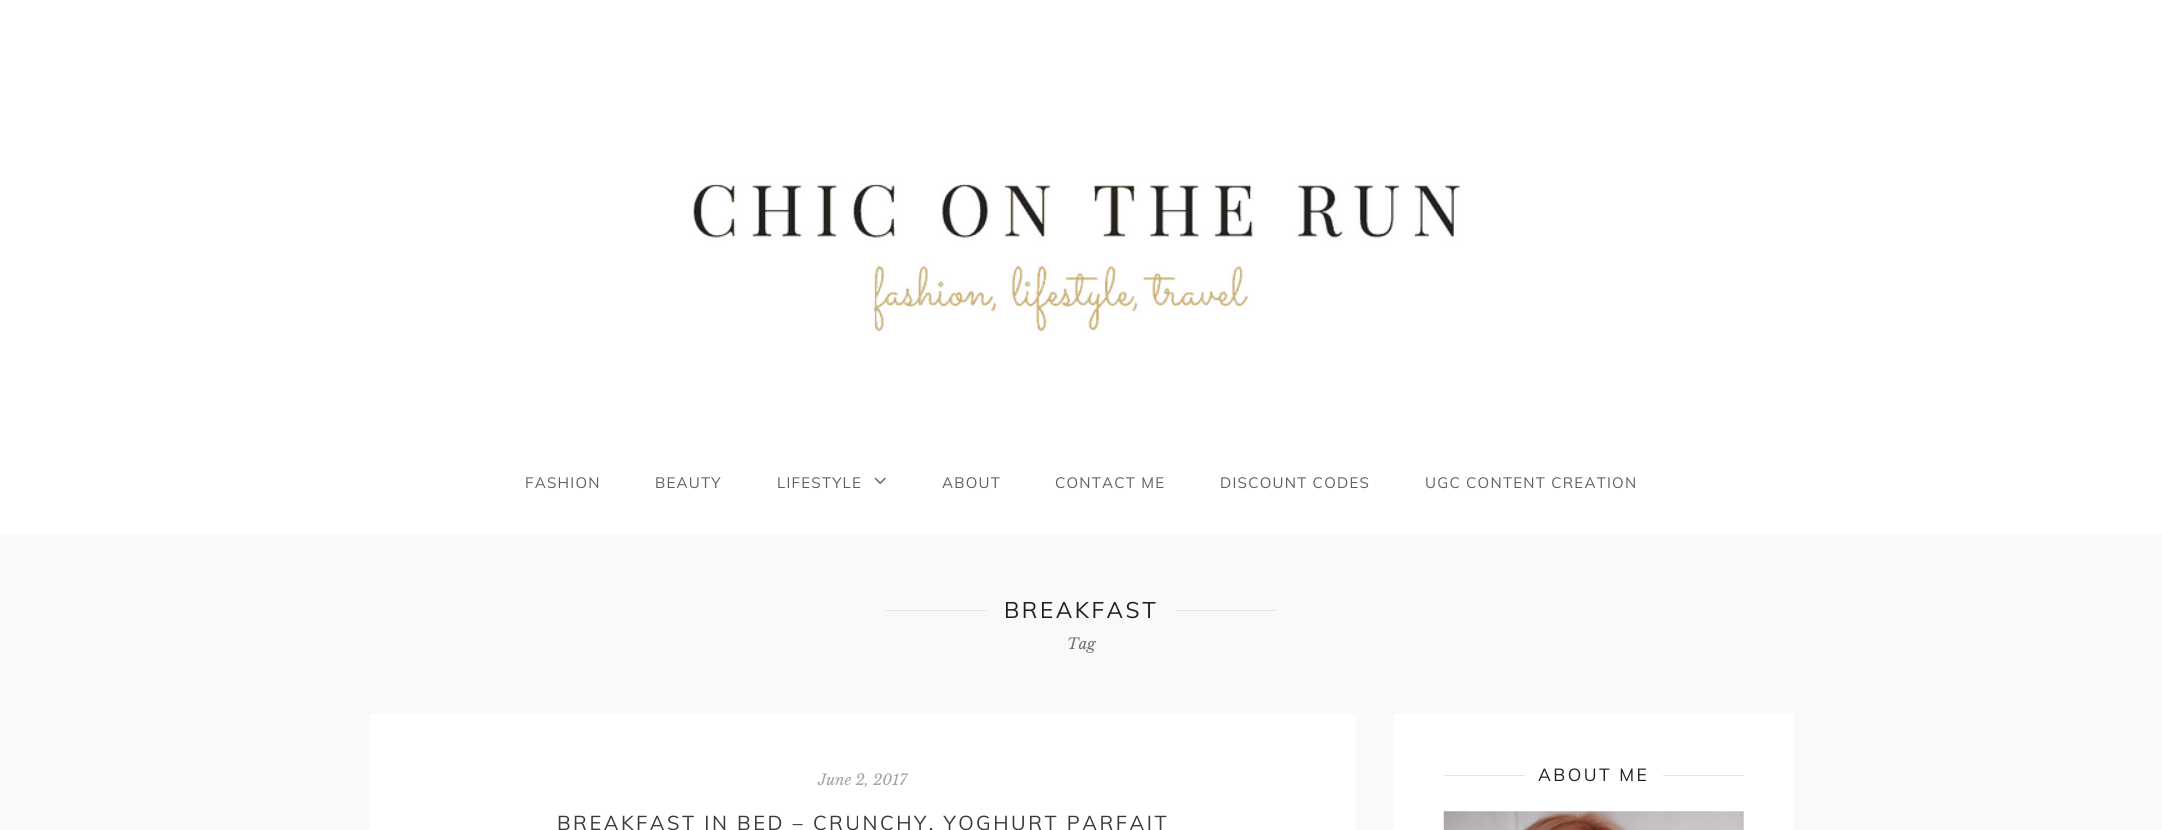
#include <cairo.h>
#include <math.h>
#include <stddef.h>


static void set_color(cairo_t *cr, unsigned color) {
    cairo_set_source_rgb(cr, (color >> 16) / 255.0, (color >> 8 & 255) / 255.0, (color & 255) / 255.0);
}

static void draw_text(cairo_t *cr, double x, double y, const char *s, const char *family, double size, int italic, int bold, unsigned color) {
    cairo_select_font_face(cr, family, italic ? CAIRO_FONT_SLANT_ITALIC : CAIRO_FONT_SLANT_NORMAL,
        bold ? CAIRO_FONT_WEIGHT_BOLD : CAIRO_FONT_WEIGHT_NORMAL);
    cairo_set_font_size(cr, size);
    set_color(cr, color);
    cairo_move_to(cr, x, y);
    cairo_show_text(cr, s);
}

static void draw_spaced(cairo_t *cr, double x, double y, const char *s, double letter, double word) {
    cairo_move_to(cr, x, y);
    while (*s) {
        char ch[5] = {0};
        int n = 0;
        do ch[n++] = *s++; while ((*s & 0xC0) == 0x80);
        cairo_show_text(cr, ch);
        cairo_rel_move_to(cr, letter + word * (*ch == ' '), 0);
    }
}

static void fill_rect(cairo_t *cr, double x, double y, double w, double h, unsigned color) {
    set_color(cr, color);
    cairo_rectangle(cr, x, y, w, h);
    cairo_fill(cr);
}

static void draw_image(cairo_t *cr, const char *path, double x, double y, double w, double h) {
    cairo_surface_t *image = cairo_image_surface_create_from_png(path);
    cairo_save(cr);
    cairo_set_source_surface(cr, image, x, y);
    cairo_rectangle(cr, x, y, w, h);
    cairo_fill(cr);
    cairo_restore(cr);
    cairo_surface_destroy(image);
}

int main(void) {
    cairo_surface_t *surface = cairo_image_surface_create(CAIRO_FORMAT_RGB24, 2162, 830);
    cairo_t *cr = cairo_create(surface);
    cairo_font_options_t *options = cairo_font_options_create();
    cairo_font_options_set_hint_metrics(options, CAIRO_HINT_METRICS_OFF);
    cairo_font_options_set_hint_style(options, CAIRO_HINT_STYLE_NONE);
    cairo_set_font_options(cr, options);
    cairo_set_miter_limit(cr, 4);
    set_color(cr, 0xF9F9F9);
    cairo_paint(cr);
    fill_rect(cr, 0, 0, 2162, 534, 0xFFFFFF);
    draw_image(cr, "assets/img1.png", 693, 183, 768, 149);
    cairo_select_font_face(cr, "Muli", CAIRO_FONT_SLANT_NORMAL, CAIRO_FONT_WEIGHT_NORMAL);
    cairo_set_font_size(cr, 15);
    set_color(cr, 0x5F5F5F);
    draw_spaced(cr, 525, 488, "FASHION", 1.25, 0);
    draw_spaced(cr, 655, 488, "BEAUTY", 1.25, 0);
    draw_spaced(cr, 777, 488, "LIFESTYLE", 1.25, 0);
    draw_image(cr, "assets/img2.png", 874, 477, 12, 8);
    draw_spaced(cr, 942, 488, "ABOUT", 1.25, 0);
    draw_spaced(cr, 1055, 488, "CONTACT ME", 1.25, 0);
    draw_spaced(cr, 1220, 488, "DISCOUNT CODES", 1.25, 0);
    draw_spaced(cr, 1425, 488, "UGC CONTENT CREATION", 1.25, 0);
    fill_rect(cr, 886, 610, 100, 1, 0xE4E4E4);
    cairo_set_font_size(cr, 22.5);
    set_color(cr, 0x231F20);
    draw_spaced(cr, 1004, 618, "BREAKFAST", 2.5, 0);
    fill_rect(cr, 1176, 610, 100, 1, 0xE4E4E4);
    draw_text(cr, 1067, 649, "Tag", "Libre Baskerville", 15, 1, 0, 0x6B6B6B);
    fill_rect(cr, 369, 714, 987, 116, 0xFFFFFF);
    draw_text(cr, 818, 785, "June 2, 2017", "Libre Baskerville", 15, 1, 0, 0xA3A2A2);
    cairo_select_font_face(cr, "Muli", CAIRO_FONT_SLANT_NORMAL, CAIRO_FONT_WEIGHT_NORMAL);
    cairo_set_font_size(cr, 20);
    set_color(cr, 0x3A3A3A);
    draw_spaced(cr, 557, 830, "BREAKFAST IN BED – CRUNCHY, YOGHURT PARFAIT", 2.5, 0);
    fill_rect(cr, 1394, 714, 400, 116, 0xFFFFFF);
    fill_rect(cr, 1444, 775, 300, 1, 0xE4E4E4);
    fill_rect(cr, 1525, 775, 138, 1, 0xFFFFFF);
    cairo_set_font_size(cr, 17.5);
    set_color(cr, 0x231F20);
    draw_spaced(cr, 1538, 781, "ABOUT ME", 2.5, 0);
    draw_image(cr, "assets/img3.png", 1443, 811, 301, 19);
    cairo_surface_write_to_png(surface, "output.png");
    cairo_font_options_destroy(options);
    cairo_destroy(cr);
    cairo_surface_destroy(surface);
    return 0;
}
